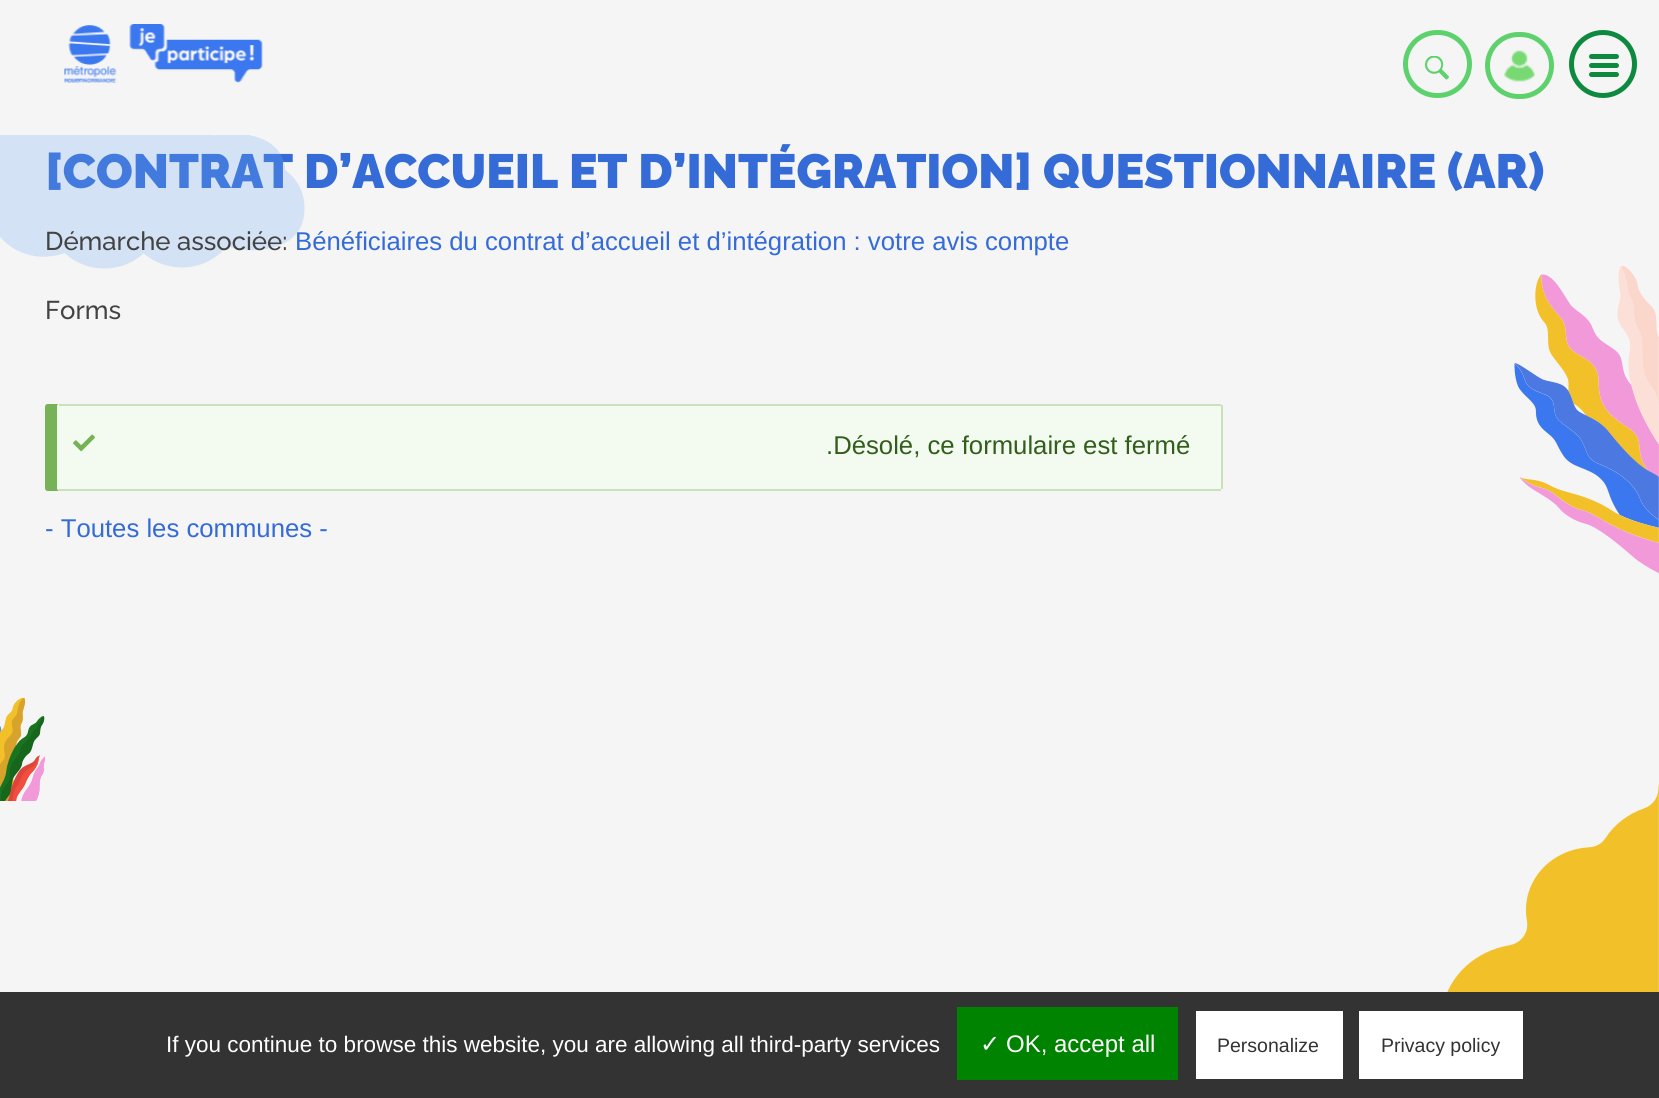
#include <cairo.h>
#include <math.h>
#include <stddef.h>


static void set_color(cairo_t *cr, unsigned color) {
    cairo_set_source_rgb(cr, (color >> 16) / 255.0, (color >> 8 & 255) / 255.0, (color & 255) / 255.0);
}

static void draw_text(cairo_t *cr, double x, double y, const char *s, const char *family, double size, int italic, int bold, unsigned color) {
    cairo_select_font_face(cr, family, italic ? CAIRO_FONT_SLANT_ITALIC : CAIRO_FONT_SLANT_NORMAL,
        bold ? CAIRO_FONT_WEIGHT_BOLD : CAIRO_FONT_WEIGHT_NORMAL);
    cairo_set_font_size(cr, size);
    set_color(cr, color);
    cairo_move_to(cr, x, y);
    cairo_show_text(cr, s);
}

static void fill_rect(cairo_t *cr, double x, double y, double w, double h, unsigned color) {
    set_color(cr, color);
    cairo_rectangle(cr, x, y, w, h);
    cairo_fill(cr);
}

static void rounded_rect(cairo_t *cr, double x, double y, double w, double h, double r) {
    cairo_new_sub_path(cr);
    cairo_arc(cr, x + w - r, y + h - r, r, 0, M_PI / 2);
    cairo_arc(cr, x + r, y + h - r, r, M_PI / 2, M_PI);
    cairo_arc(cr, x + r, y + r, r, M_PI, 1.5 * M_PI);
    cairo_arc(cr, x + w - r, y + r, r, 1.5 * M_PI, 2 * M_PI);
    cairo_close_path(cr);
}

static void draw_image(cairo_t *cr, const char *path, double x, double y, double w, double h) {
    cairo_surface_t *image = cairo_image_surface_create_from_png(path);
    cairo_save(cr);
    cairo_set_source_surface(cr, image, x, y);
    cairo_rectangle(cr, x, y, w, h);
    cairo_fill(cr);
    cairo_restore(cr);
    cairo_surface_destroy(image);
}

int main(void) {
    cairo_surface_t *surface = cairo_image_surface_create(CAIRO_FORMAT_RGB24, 1659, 1098);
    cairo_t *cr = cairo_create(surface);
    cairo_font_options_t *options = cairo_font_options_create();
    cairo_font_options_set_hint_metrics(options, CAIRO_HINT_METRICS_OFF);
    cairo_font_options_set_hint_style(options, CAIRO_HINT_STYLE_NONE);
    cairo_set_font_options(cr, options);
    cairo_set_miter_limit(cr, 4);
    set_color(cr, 0xF5F5F5);
    cairo_paint(cr);
    draw_image(cr, "assets/img1.png", 64, 24, 199, 59);
    rounded_rect(cr, 1405.5, 32.5, 64, 63, 31.5);
    set_color(cr, 0x5DD16C);
    cairo_set_line_width(cr, 5);
    cairo_stroke(cr);
    draw_image(cr, "assets/img2.png", 1425, 56, 24, 24);
    draw_image(cr, "assets/img3.png", 1504, 50, 31, 32);
    rounded_rect(cr, 1487.5, 34.5, 64, 62, 31);
    cairo_stroke(cr);
    cairo_arc(cr, 1603, 64, 31.5, 0, 2 * M_PI);
    set_color(cr, 0x0D8A3D);
    cairo_stroke(cr);
    rounded_rect(cr, 1589, 54, 30, 5, 2.5);
    cairo_fill(cr);
    rounded_rect(cr, 1589, 63, 30, 5, 2.5);
    cairo_fill(cr);
    rounded_rect(cr, 1589, 72, 30, 5, 2.5);
    cairo_fill(cr);
    draw_image(cr, "assets/img4.png", 1447, 265, 212, 727);
    draw_text(cr, 45, 188, "[CONTRAT D’ACCUEIL ET D’INTÉGRATION] QUESTIONNAIRE (AR)", "Raleway Black", 48, 0, 0, 0x346BD7);
    draw_image(cr, "assets/img5.png", 0, 135, 305, 134);
    draw_text(cr, 45, 250, "Démarche associée:", "Raleway Medium", 25.7, 0, 0, 0x434343);
    draw_text(cr, 295, 250, "Bénéficiaires du contrat d’accueil et d’intégration : votre avis compte", "Liberation Sans", 25.7, 0, 0, 0x346BD7);
    draw_text(cr, 45, 319, "Forms", "Raleway Medium", 25.7, 0, 0, 0x434343);
    set_color(cr, 0x77B259);
    cairo_new_path(cr);
    cairo_move_to(cr, 48, 404);
    cairo_curve_to(cr, 46, 404, 45, 405, 45, 407);
    cairo_line_to(cr, 45, 488);
    cairo_curve_to(cr, 45, 490, 46, 491, 48, 491);
    cairo_line_to(cr, 1208, 491);
    cairo_line_to(cr, 1210, 490);
    cairo_line_to(cr, 60, 490);
    cairo_curve_to(cr, 58, 490, 57, 489, 57, 488);
    cairo_line_to(cr, 57, 406);
    cairo_line_to(cr, 58, 404);
    cairo_close_path(cr);
    cairo_fill(cr);
    set_color(cr, 0xF3FAEF);
    rounded_rect(cr, 57, 404, 1166, 87, 3);
    cairo_fill(cr);
    draw_image(cr, "assets/img6.png", 73, 434, 22, 18);
    fill_rect(cr, 59, 404, 1162, 2, 0xC9E1BD);
    fill_rect(cr, 1221, 405, 2, 84, 0xC9E1BD);
    fill_rect(cr, 59, 489, 1162, 2, 0xC9E1BD);
    draw_text(cr, 826, 454, ".Désolé, ce formulaire est fermé", "Liberation Sans", 25.7, 0, 0, 0x325E1C);
    draw_text(cr, 45, 537, "- Toutes les communes -", "Liberation Sans", 25.7, 0, 0, 0x346BD7);
    draw_image(cr, "assets/img7.png", 0, 698, 45, 103);
    fill_rect(cr, 0, 992, 1659, 106, 0x333333);
    draw_text(cr, 166, 1052, "If you continue to browse this website, you are allowing all third-party services", "Liberation Sans", 22.5, 0, 0, 0xFFFFFF);
    fill_rect(cr, 957, 1007, 221, 73, 0x008300);
    draw_text(cr, 980, 1052, "✓", "DejaVu Sans", 24, 0, 0, 0xFFFFFF);
    draw_text(cr, 1006, 1052, "OK, accept all", "Liberation Sans", 24, 0, 0, 0xFFFFFF);
    fill_rect(cr, 1196, 1011, 147, 68, 0xFFFFFF);
    draw_text(cr, 1217, 1052, "Personalize", "Liberation Sans", 19.5, 0, 0, 0x333333);
    fill_rect(cr, 1359, 1011, 164, 68, 0xFFFFFF);
    draw_text(cr, 1381, 1052, "Privacy policy", "Liberation Sans", 19.5, 0, 0, 0x333333);
    cairo_surface_write_to_png(surface, "output.png");
    cairo_font_options_destroy(options);
    cairo_destroy(cr);
    cairo_surface_destroy(surface);
    return 0;
}
